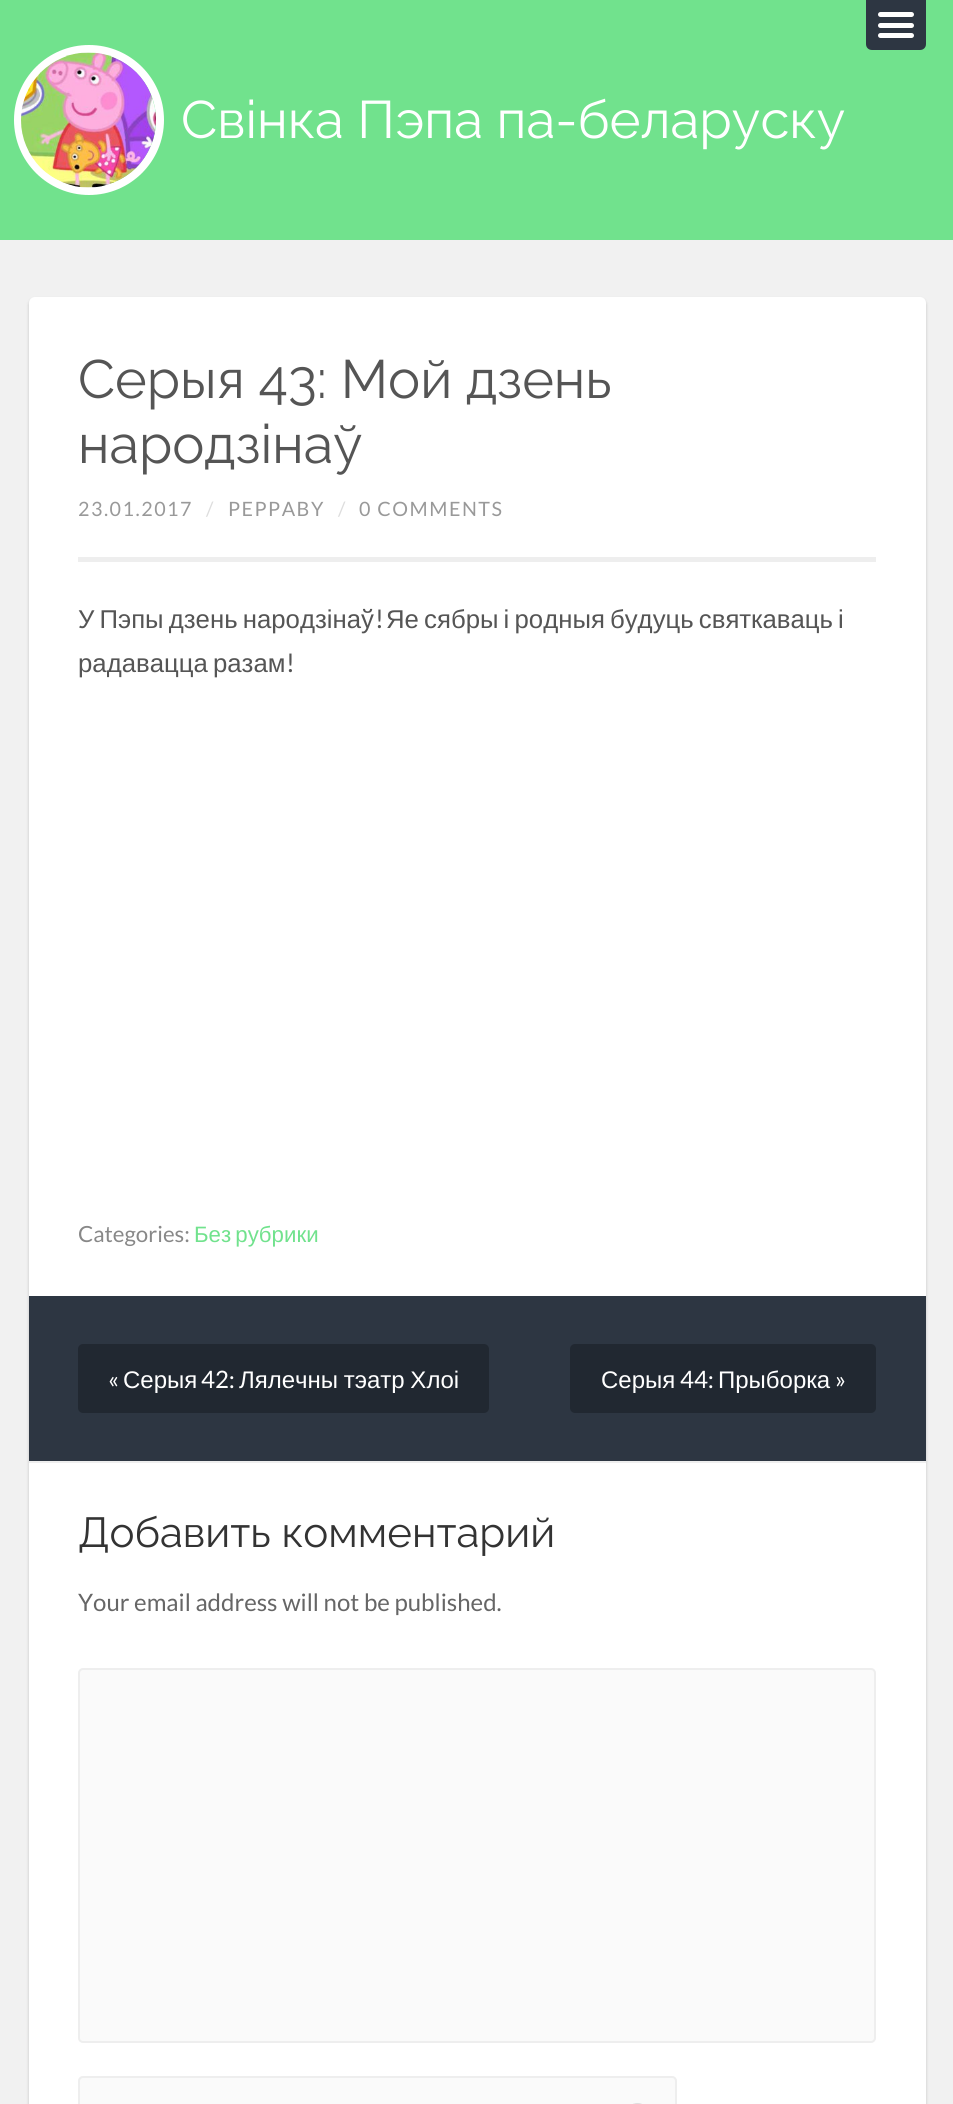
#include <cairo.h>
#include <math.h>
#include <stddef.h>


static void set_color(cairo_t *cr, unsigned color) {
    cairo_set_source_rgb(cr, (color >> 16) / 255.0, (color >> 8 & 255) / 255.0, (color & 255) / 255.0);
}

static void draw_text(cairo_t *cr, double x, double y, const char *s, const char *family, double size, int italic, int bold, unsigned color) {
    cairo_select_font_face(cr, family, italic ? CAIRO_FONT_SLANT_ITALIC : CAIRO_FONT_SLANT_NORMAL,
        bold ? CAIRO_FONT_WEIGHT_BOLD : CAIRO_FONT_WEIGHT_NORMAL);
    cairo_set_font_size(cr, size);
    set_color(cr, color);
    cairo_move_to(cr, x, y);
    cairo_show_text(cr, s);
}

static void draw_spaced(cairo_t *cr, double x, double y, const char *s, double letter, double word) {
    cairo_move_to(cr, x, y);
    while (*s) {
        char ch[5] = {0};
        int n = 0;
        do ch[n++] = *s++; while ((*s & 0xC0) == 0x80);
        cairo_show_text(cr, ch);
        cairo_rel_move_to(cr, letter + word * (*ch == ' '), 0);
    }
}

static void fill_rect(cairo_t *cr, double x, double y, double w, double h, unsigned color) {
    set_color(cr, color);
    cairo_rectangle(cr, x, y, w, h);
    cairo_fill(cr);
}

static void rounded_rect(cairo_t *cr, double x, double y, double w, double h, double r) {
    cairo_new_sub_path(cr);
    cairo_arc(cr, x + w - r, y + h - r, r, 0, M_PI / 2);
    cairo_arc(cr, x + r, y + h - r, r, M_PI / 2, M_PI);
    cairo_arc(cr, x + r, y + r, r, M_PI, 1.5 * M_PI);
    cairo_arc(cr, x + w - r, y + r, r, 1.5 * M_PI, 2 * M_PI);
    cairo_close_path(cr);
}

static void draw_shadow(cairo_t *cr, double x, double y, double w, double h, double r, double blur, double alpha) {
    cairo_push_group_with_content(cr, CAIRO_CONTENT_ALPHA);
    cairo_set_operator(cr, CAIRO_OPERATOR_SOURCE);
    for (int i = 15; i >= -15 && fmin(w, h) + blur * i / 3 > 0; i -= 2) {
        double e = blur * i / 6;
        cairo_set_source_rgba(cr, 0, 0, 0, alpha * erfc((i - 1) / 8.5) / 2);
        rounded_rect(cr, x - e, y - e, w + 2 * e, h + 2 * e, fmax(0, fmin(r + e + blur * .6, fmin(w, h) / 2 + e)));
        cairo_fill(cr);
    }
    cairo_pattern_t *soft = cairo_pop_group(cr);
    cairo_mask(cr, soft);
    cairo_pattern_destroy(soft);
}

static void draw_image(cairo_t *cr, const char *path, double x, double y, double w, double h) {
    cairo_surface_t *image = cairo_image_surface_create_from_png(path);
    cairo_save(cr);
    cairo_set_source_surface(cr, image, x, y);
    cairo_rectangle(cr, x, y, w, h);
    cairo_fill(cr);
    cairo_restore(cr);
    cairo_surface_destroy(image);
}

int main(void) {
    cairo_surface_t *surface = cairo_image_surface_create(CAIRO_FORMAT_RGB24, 953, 2104);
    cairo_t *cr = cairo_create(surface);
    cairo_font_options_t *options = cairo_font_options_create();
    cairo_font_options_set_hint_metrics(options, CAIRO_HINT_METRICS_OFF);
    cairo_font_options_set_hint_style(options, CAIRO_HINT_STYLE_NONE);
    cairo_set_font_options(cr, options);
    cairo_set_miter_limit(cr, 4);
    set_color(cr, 0xF1F1F1);
    cairo_paint(cr);
    fill_rect(cr, 0, 0, 953, 240, 0x71E28D);
    set_color(cr, 0x2D3642);
    cairo_new_path(cr);
    cairo_move_to(cr, 866, 0);
    cairo_line_to(cr, 926, 0);
    cairo_line_to(cr, 926, 44);
    cairo_curve_to(cr, 926, 47.5, 923.5, 50, 920, 50);
    cairo_line_to(cr, 872, 50);
    cairo_curve_to(cr, 868.5, 50, 866, 47.5, 866, 44);
    cairo_close_path(cr);
    cairo_fill(cr);
    set_color(cr, 0xFFFFFF);
    rounded_rect(cr, 878, 12, 36, 5, 2.5);
    cairo_fill(cr);
    rounded_rect(cr, 878, 23, 36, 5, 2.5);
    cairo_fill(cr);
    rounded_rect(cr, 878, 33, 36, 5, 2.5);
    cairo_fill(cr);
    cairo_arc(cr, 89, 120, 71, 0, 2 * M_PI);
    cairo_set_line_width(cr, 8);
    cairo_stroke(cr);
    draw_image(cr, "assets/img1.png", 21, 52, 135, 136);
    draw_text(cr, 181, 138, "Свінка Пэпа па-беларуску", "Raleway", 52.75, 0, 0, 0xFFFFFF);
    set_color(cr, 0x000000);
    draw_shadow(cr, 29, 299, 897, 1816, 6, 1.5, 0.2);
    set_color(cr, 0xFFFFFF);
    rounded_rect(cr, 29, 297, 897, 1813, 6);
    cairo_fill(cr);
    fill_rect(cr, 78, 557, 798, 5, 0xEEEEEE);
    draw_text(cr, 78, 398, "Серыя 43: Мой дзень", "Raleway", 54, 0, 0, 0x555555);
    draw_text(cr, 78, 463, "народзінаў", "Raleway", 54, 0, 0, 0x555555);
    cairo_select_font_face(cr, "Lato", CAIRO_FONT_SLANT_NORMAL, CAIRO_FONT_WEIGHT_NORMAL);
    cairo_set_font_size(cr, 19.75);
    set_color(cr, 0x999999);
    draw_spaced(cr, 78, 516, "23.01.2017", 1.5, 0);
    set_color(cr, 0xDDDDDD);
    draw_spaced(cr, 206, 516, "/", 1.5, 0);
    set_color(cr, 0x999999);
    draw_spaced(cr, 228, 516, "PEPPABY", 1.5, 0);
    set_color(cr, 0xDDDDDD);
    draw_spaced(cr, 338, 516, "/", 1.5, 0);
    set_color(cr, 0x999999);
    draw_spaced(cr, 359, 516, "0 COMMENTS", 1.5, 0);
    cairo_select_font_face(cr, "Liberation Sans", CAIRO_FONT_SLANT_NORMAL, CAIRO_FONT_WEIGHT_NORMAL);
    cairo_set_font_size(cr, 25.75);
    set_color(cr, 0x555555);
    draw_spaced(cr, 78, 628, "У Пэпы дзень народзінаў", 0, -2);
    draw_text(cr, 375, 628, "!", "Lato", 25.75, 0, 0, 0x555555);
    cairo_select_font_face(cr, "Liberation Sans", CAIRO_FONT_SLANT_NORMAL, CAIRO_FONT_WEIGHT_NORMAL);
    draw_spaced(cr, 386, 628, "Яе сябры і родныя будуць святкаваць і", 0, -2);
    draw_spaced(cr, 78, 672, "радавацца разам", 0, -2);
    draw_text(cr, 286, 672, "!", "Lato", 25.75, 0, 0, 0x555555);
    draw_text(cr, 78, 1242, "Categories:", "Lato", 22.25, 0, 0, 0x888888);
    cairo_select_font_face(cr, "Liberation Sans", CAIRO_FONT_SLANT_NORMAL, CAIRO_FONT_WEIGHT_NORMAL);
    set_color(cr, 0x71E28D);
    draw_spaced(cr, 194, 1242, "Без рубрики", 0, -2);
    fill_rect(cr, 29, 1296, 897, 165, 0x2D3642);
    set_color(cr, 0x212831);
    rounded_rect(cr, 78, 1344, 411, 69, 5);
    cairo_fill(cr);
    draw_text(cr, 108, 1388, "«", "Lato", 24, 0, 0, 0xFFFFFF);
    draw_text(cr, 123, 1388, "Серыя", "Liberation Sans", 24, 0, 0, 0xFFFFFF);
    draw_text(cr, 201, 1388, "42:", "Lato", 24, 0, 0, 0xFFFFFF);
    cairo_select_font_face(cr, "Liberation Sans", CAIRO_FONT_SLANT_NORMAL, CAIRO_FONT_WEIGHT_NORMAL);
    draw_spaced(cr, 239, 1388, "Лялечны тэатр Хлоі", 0, -1);
    set_color(cr, 0x212831);
    rounded_rect(cr, 570, 1344, 306, 69, 5);
    cairo_fill(cr);
    draw_text(cr, 601, 1388, "Серыя", "Liberation Sans", 24, 0, 0, 0xFFFFFF);
    draw_text(cr, 680, 1388, "44:", "Lato", 24, 0, 0, 0xFFFFFF);
    draw_text(cr, 718, 1388, "Прыборка", "Liberation Sans", 24, 0, 0, 0xFFFFFF);
    draw_text(cr, 835, 1388, "»", "Lato", 24, 0, 0, 0xFFFFFF);
    fill_rect(cr, 29, 1461, 897, 2, 0xEEEEEE);
    draw_text(cr, 78, 1547, "Добавить комментарий", "Raleway", 42, 0, 0, 0x333333);
    draw_text(cr, 78, 1611, "Your email address will not be published.", "Lato", 24, 0, 0, 0x666666);
    set_color(cr, 0xFAFAFA);
    rounded_rect(cr, 79, 1669, 796, 373, 4);
    cairo_fill_preserve(cr);
    set_color(cr, 0xEEEEEE);
    cairo_set_line_width(cr, 2);
    cairo_stroke(cr);
    set_color(cr, 0xFAFAFA);
    rounded_rect(cr, 78, 2076, 599, 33, 5);
    cairo_fill(cr);
    draw_image(cr, "assets/img2.png", 633, 2103, 9, 1);
    rounded_rect(cr, 79, 2077, 597, 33, 4);
    set_color(cr, 0xEEEEEE);
    cairo_stroke(cr);
    cairo_surface_write_to_png(surface, "output.png");
    cairo_font_options_destroy(options);
    cairo_destroy(cr);
    cairo_surface_destroy(surface);
    return 0;
}
